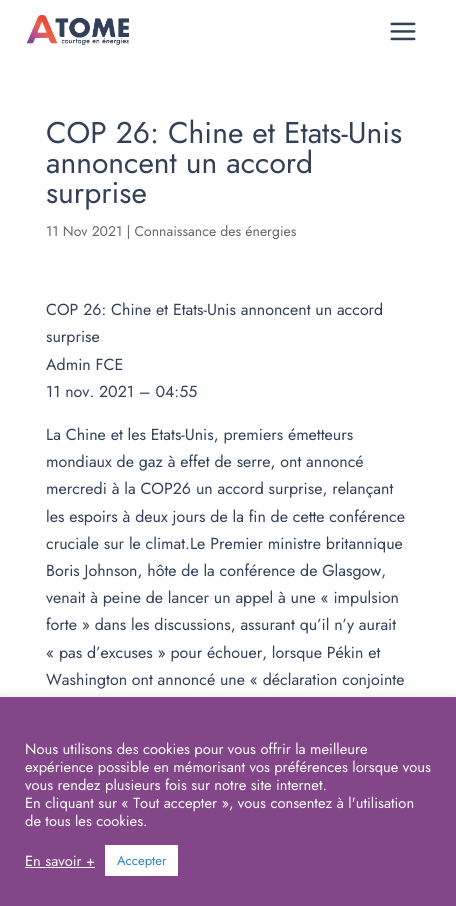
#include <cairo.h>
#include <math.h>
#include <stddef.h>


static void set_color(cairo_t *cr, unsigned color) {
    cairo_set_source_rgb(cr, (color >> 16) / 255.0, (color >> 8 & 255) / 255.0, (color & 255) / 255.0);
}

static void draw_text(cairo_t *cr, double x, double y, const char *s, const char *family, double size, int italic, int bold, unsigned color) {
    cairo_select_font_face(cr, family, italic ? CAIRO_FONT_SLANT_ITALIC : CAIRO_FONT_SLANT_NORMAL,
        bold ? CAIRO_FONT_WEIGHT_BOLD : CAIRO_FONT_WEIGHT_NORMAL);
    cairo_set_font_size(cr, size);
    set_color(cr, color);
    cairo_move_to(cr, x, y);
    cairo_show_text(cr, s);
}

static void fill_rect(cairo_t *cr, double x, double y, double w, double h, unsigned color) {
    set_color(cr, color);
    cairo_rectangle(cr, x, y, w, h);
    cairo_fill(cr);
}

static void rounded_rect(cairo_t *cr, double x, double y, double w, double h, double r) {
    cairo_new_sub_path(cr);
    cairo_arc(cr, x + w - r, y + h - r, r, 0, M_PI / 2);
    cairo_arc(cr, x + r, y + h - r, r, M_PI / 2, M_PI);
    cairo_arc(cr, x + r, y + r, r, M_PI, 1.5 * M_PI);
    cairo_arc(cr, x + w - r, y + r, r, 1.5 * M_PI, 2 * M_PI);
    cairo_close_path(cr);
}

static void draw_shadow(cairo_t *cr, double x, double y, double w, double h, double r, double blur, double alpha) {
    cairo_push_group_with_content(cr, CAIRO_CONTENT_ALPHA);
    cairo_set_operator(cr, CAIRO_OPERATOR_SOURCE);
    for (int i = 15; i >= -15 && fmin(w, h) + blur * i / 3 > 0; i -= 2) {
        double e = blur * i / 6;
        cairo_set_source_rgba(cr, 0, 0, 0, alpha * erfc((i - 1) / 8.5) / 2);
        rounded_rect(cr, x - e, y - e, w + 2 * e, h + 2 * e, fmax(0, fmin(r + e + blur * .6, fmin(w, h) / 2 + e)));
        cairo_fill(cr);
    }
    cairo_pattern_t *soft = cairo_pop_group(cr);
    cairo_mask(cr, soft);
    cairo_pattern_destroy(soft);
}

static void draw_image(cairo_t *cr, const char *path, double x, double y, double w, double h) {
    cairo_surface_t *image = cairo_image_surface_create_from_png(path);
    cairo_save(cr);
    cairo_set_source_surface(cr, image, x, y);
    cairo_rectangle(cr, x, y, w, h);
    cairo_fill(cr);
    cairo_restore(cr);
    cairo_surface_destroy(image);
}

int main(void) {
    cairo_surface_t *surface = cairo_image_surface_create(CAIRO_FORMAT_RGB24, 456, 906);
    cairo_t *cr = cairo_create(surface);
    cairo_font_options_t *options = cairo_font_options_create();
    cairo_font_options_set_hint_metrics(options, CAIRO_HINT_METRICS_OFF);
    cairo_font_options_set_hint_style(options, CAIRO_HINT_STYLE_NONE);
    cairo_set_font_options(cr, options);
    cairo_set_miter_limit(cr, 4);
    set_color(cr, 0xFFFFFF);
    cairo_paint(cr);
    draw_image(cr, "assets/img1.png", 27, 15, 102, 30);
    draw_image(cr, "assets/img2.png", 390, 22, 26, 19);
    draw_text(cr, 46, 143, "COP 26: Chine et Etats-Unis", "Jost", 30, 0, 0, 0x324159);
    draw_text(cr, 46, 173, "annoncent un accord", "Jost", 30, 0, 0, 0x324159);
    draw_text(cr, 46, 203, "surprise", "Jost", 30, 0, 0, 0x324159);
    draw_text(cr, 46, 236, "11 Nov 2021 | Connaissance des énergies", "Jost", 14, 0, 0, 0x666666);
    draw_text(cr, 46, 315, "COP 26: Chine et Etats-Unis annoncent un accord", "Jost", 16, 0, 0, 0x324159);
    draw_text(cr, 46, 342, "surprise", "Jost", 16, 0, 0, 0x324159);
    draw_text(cr, 46, 370, "Admin FCE", "Jost", 16, 0, 0, 0x324159);
    draw_text(cr, 46, 397, "11 nov. 2021 – 04:55", "Jost", 16, 0, 0, 0x324159);
    draw_text(cr, 46, 440, "La Chine et les Etats-Unis, premiers émetteurs", "Jost", 16, 0, 0, 0x324159);
    draw_text(cr, 46, 467, "mondiaux de gaz à effet de serre, ont annoncé", "Jost", 16, 0, 0, 0x324159);
    draw_text(cr, 46, 494, "mercredi à la COP26 un accord surprise, relançant", "Jost", 16, 0, 0, 0x324159);
    draw_text(cr, 46, 522, "les espoirs à deux jours de la fin de cette conférence", "Jost", 16, 0, 0, 0x324159);
    draw_text(cr, 46, 549, "cruciale sur le climat.Le Premier ministre britannique", "Jost", 16, 0, 0, 0x324159);
    draw_text(cr, 46, 576, "Boris Johnson, hôte de la conférence de Glasgow,", "Jost", 16, 0, 0, 0x324159);
    draw_text(cr, 46, 603, "venait à peine de lancer un appel à une « impulsion", "Jost", 16, 0, 0, 0x324159);
    draw_text(cr, 46, 630, "forte » dans les discussions, assurant qu’il n’y aurait", "Jost", 16, 0, 0, 0x324159);
    draw_text(cr, 46, 658, "« pas d’excuses » pour échouer, lorsque Pékin et", "Jost", 16, 0, 0, 0x324159);
    draw_text(cr, 46, 685, "Washington ont annoncé une « déclaration conjointe", "Jost", 16, 0, 0, 0x324159);
    set_color(cr, 0xACABAB);
    draw_shadow(cr, 0, 696, 456, 209, 0, 5, 0.3);
    fill_rect(cr, 0, 697, 456, 209, 0x834688);
    draw_text(cr, 25, 754, "Nous utilisons des cookies pour vous offrir la meilleure", "Jost", 14.7, 0, 0, 0xFFFFFF);
    draw_text(cr, 25, 772, "expérience possible en mémorisant vos préférences lorsque vous", "Jost", 14.7, 0, 0, 0xFFFFFF);
    draw_text(cr, 25, 790, "vous rendez plusieurs fois sur notre site internet.", "Jost", 14.7, 0, 0, 0xFFFFFF);
    draw_text(cr, 25, 808, "En cliquant sur « Tout accepter », vous consentez à l'utilisation", "Jost", 14.7, 0, 0, 0xFFFFFF);
    draw_text(cr, 25, 826, "de tous les cookies.", "Jost", 14.7, 0, 0, 0xFFFFFF);
    draw_text(cr, 25, 866, "En savoir +", "Jost", 14.7, 0, 0, 0xFFFFFF);
    fill_rect(cr, 25, 867, 70, 1, 0xFFFFFF);
    fill_rect(cr, 105, 845, 73, 31, 0xFFFFFF);
    draw_text(cr, 117, 865, "Accepter", "Jost", 13, 0, 0, 0x3280C3);
    cairo_surface_write_to_png(surface, "output.png");
    cairo_font_options_destroy(options);
    cairo_destroy(cr);
    cairo_surface_destroy(surface);
    return 0;
}
